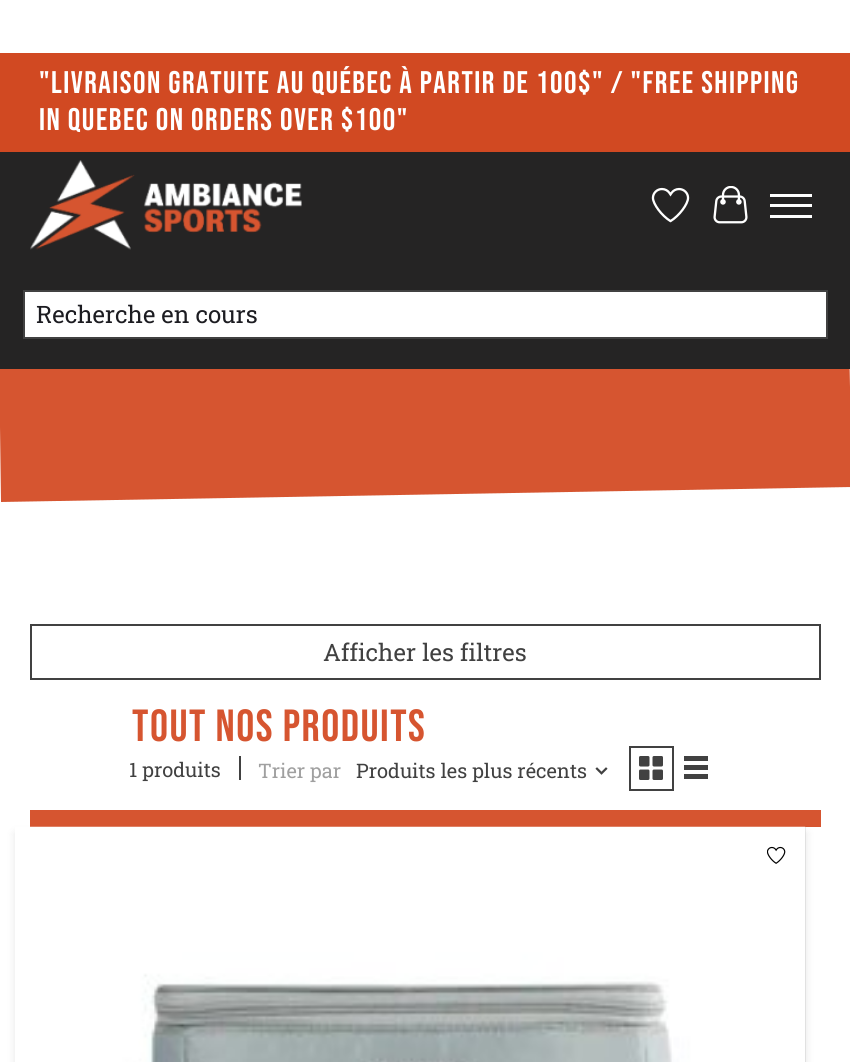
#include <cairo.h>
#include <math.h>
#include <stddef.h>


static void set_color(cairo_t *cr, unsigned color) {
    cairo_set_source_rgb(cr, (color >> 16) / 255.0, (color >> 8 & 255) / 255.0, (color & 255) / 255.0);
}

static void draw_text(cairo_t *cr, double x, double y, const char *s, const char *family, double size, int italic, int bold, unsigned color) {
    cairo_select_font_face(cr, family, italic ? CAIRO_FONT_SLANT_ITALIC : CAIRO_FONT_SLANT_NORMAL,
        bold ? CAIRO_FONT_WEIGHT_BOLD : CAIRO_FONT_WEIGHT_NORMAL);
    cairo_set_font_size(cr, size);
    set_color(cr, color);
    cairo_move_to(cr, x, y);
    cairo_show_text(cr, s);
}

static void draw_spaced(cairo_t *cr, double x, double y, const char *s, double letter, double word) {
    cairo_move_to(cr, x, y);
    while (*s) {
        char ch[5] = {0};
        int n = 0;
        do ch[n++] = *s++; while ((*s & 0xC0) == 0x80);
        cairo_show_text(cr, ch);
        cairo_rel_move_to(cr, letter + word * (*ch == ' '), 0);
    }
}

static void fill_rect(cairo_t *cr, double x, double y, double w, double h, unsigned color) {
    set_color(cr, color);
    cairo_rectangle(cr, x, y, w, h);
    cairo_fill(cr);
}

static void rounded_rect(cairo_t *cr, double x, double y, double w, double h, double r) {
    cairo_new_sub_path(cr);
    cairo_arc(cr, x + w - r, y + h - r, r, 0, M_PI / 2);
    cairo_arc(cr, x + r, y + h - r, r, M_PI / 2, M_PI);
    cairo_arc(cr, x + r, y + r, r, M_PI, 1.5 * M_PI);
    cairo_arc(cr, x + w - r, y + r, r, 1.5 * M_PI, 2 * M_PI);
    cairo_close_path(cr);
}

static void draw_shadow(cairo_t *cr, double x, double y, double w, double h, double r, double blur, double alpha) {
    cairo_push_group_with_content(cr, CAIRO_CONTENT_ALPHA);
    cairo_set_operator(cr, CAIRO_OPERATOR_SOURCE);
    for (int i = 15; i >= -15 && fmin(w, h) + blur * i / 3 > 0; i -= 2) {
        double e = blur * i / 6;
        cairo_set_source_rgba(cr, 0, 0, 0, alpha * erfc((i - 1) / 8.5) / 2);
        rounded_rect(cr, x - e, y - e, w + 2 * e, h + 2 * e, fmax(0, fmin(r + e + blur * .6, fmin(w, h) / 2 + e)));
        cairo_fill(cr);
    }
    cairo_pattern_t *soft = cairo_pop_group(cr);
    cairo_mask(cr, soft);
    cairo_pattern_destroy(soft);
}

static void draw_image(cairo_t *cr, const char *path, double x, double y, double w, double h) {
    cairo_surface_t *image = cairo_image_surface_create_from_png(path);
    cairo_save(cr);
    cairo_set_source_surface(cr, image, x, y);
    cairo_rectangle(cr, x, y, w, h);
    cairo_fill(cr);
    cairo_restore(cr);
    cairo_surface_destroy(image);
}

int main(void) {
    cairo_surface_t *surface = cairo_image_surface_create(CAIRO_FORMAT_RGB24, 850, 1062);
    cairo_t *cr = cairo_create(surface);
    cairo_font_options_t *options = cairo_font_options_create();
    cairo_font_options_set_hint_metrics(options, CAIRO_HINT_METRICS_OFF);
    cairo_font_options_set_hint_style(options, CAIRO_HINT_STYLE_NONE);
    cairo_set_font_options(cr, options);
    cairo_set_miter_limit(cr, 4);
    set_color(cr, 0xFFFFFF);
    cairo_paint(cr);
    set_color(cr, 0xD65530);
    cairo_new_path(cr);
    cairo_move_to(cr, -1, 352);
    cairo_line_to(cr, 849, 337);
    cairo_line_to(cr, 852, 487);
    cairo_line_to(cr, 1, 502);
    cairo_close_path(cr);
    cairo_fill(cr);
    fill_rect(cr, 0, 152, 850, 217, 0x252424);
    fill_rect(cr, 0, 53, 850, 99, 0xD14922);
    cairo_select_font_face(cr, "Bebas Neue", CAIRO_FONT_SLANT_NORMAL, CAIRO_FONT_WEIGHT_NORMAL);
    cairo_set_font_size(cr, 31.25);
    set_color(cr, 0xFFFFFF);
    draw_spaced(cr, 39, 93, "\"Livraison gratuite au Québec à partir de 100$\" / \"Free shipping", 1.5, 0);
    draw_spaced(cr, 39, 130, "in Quebec on orders over $100\"", 1.5, 0);
    draw_image(cr, "assets/img1.png", 30, 160, 272, 90);
    draw_image(cr, "assets/img2.png", 651, 187, 39, 36);
    draw_image(cr, "assets/img3.png", 713, 186, 35, 38);
    fill_rect(cr, 770, 204, 42, 3, 0xFFFFFF);
    fill_rect(cr, 770, 194, 42, 3, 0xFFFFFF);
    fill_rect(cr, 770, 215, 42, 3, 0xFFFFFF);
    cairo_rectangle(cr, 24, 291, 803, 47);
    cairo_fill_preserve(cr);
    set_color(cr, 0x414141);
    cairo_stroke(cr);
    draw_text(cr, 36, 323, "Recherche en cours", "Roboto Slab", 24, 0, 0, 0x1C1C21);
    cairo_rectangle(cr, 31, 625, 789, 54);
    set_color(cr, 0x414141);
    cairo_stroke(cr);
    draw_text(cr, 323, 661, "Afficher les filtres", "Roboto Slab", 24, 0, 0, 0x414141);
    cairo_select_font_face(cr, "Bebas Neue", CAIRO_FONT_SLANT_NORMAL, CAIRO_FONT_WEIGHT_NORMAL);
    cairo_set_font_size(cr, 45);
    set_color(cr, 0xD65530);
    draw_spaced(cr, 132, 741, "Tout Nos Produits", 1.5, 0);
    draw_text(cr, 129, 777, "1 produits", "Roboto Slab", 20, 0, 0, 0x414141);
    fill_rect(cr, 239, 756, 2, 24, 0x414141);
    draw_text(cr, 258, 778, "Trier par", "Roboto Slab", 20, 0, 0, 0xA0A0A0);
    draw_text(cr, 356, 778, "Produits les plus récents", "Roboto Slab", 20, 0, 0, 0x414141);
    draw_image(cr, "assets/img4.png", 595, 767, 13, 8);
    cairo_rectangle(cr, 630, 747, 43, 43);
    cairo_stroke(cr);
    draw_image(cr, "assets/img5.png", 639, 756, 24, 24);
    fill_rect(cr, 684, 756, 24, 5, 0x414141);
    fill_rect(cr, 684, 765, 24, 5, 0x414141);
    fill_rect(cr, 684, 774, 24, 5, 0x414141);
    fill_rect(cr, 30, 810, 791, 17, 0xD65530);
    set_color(cr, 0x000000);
    draw_shadow(cr, 15, 833, 791, 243, 0, 4.5, 0.1);
    cairo_set_source_rgba(cr, 0.255, 0.255, 0.255, 0.15);
    cairo_rectangle(cr, 805, 827, 1, 235);
    cairo_fill(cr);
    draw_image(cr, "assets/img6.png", 15, 826, 791, 236);
    draw_image(cr, "assets/img7.png", 767, 846, 19, 18);
    cairo_surface_write_to_png(surface, "output.png");
    cairo_font_options_destroy(options);
    cairo_destroy(cr);
    cairo_surface_destroy(surface);
    return 0;
}
